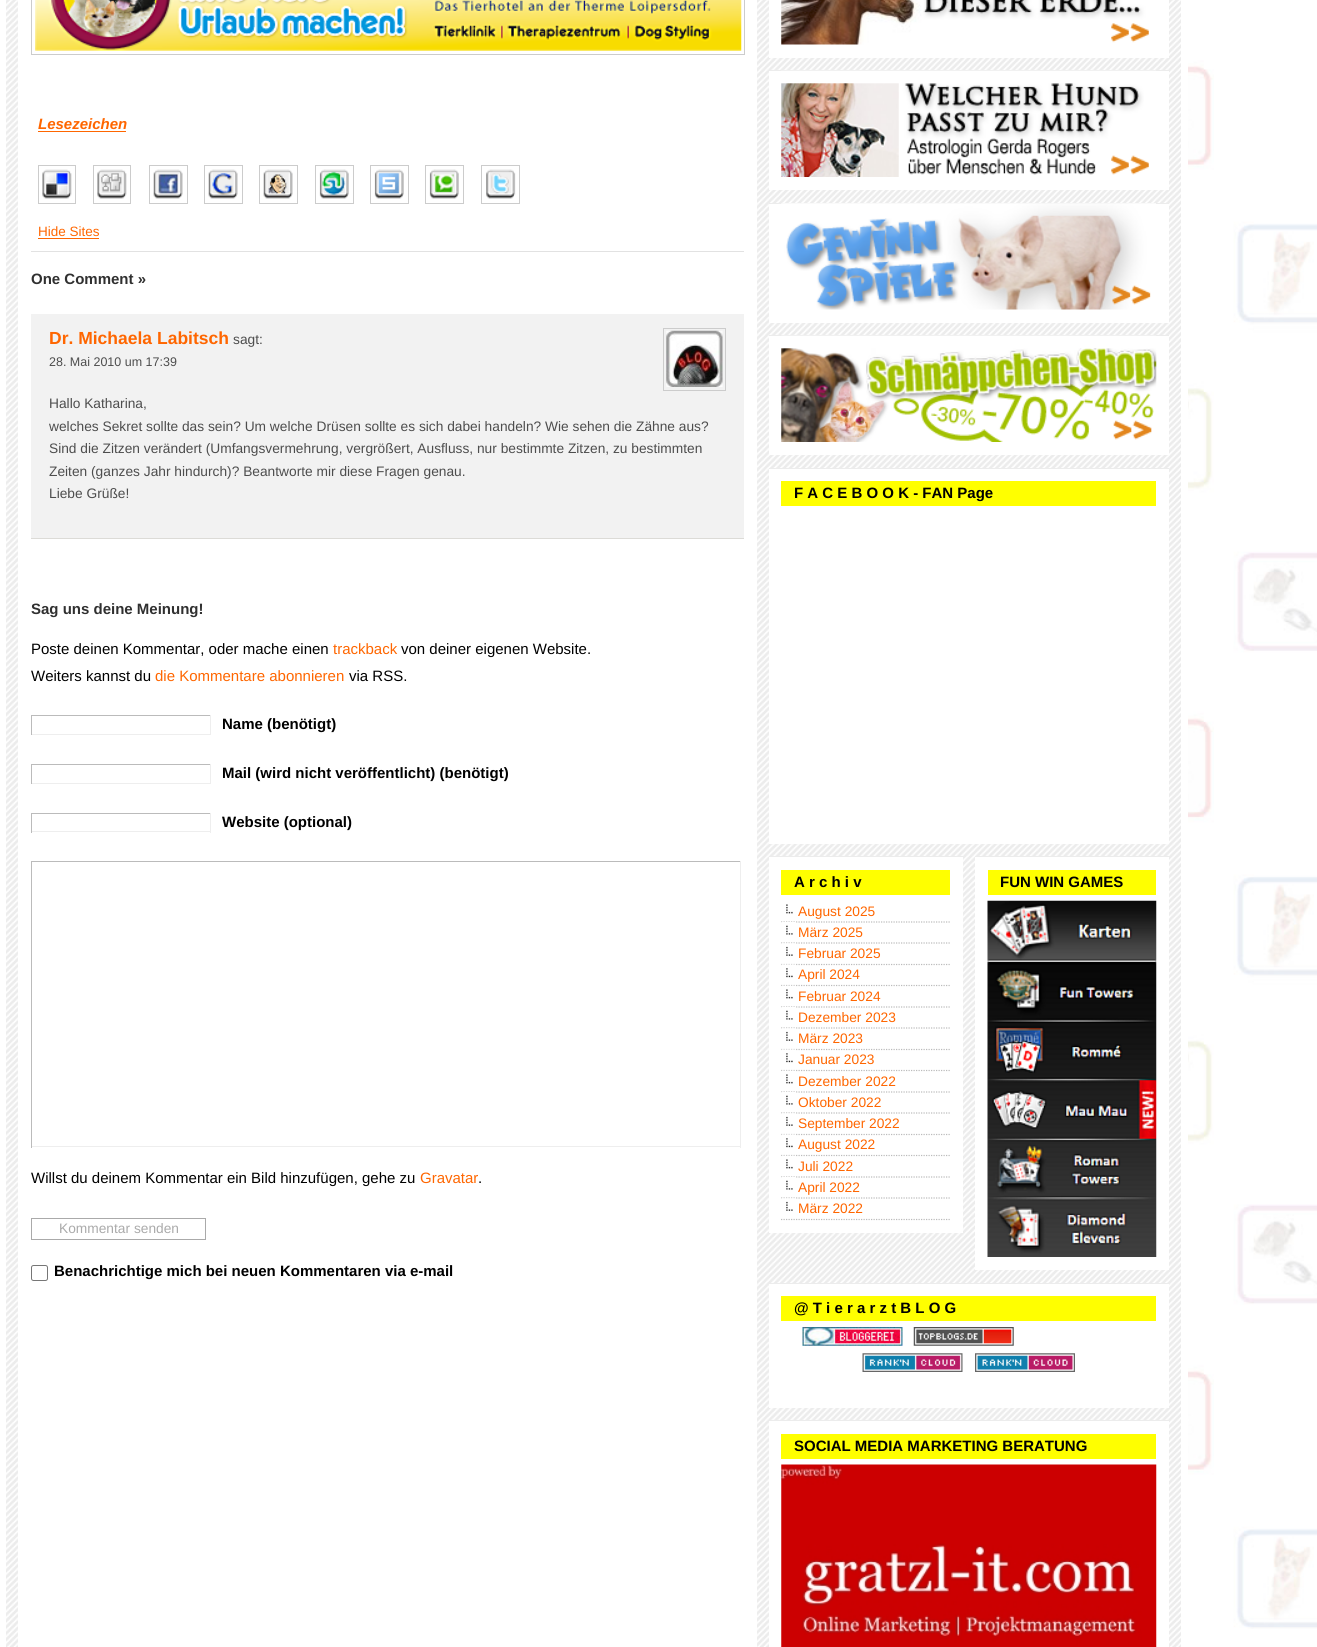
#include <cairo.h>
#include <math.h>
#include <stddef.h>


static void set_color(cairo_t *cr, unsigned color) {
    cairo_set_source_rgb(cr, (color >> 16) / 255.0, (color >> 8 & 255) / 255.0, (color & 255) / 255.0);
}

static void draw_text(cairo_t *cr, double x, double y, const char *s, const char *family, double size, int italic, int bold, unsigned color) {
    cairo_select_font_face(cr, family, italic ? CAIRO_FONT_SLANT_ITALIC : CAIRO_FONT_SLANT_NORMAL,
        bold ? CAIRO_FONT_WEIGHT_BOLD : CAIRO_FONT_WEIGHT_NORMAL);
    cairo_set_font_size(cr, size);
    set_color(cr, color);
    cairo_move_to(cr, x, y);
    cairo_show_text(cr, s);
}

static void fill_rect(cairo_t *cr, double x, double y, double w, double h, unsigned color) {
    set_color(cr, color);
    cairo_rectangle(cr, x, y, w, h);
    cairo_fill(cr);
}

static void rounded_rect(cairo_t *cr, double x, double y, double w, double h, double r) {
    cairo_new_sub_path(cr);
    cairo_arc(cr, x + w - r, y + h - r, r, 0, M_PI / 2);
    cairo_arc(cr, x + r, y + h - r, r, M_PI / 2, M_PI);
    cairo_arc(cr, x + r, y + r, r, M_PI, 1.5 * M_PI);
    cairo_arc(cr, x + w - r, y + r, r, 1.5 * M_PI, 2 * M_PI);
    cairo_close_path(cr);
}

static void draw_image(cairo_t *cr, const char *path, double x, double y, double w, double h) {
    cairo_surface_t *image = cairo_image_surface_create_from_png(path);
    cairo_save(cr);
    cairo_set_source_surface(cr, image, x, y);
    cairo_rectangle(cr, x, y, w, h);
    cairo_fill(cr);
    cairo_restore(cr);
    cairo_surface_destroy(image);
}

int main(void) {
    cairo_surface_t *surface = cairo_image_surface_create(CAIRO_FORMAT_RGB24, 1317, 1647);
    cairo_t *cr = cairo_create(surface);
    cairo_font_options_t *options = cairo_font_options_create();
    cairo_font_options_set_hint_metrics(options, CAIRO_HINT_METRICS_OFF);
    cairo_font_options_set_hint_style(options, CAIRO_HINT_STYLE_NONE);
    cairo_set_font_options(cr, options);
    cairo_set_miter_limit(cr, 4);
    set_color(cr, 0xFFFFFF);
    cairo_paint(cr);
    draw_image(cr, "assets/img1.png", 1188, 60, 129, 1569);
    draw_image(cr, "assets/img2.png", 6, 0, 1175, 1647);
    fill_rect(cr, 18, 0, 739, 1647, 0xFFFFFF);
    fill_rect(cr, 31, 251, 713, 1, 0xE2E2E2);
    cairo_rectangle(cr, 31.5, -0.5, 713, 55);
    set_color(cr, 0xCCCCCC);
    cairo_set_line_width(cr, 1);
    cairo_stroke(cr);
    draw_image(cr, "assets/img3.png", 35, 0, 707, 51);
    draw_text(cr, 38, 129, "Lesezeichen", "Liberation Sans", 15, 1, 1, 0xFF6600);
    fill_rect(cr, 38, 131, 88, 1, 0xFF6600);
    cairo_rectangle(cr, 38.5, 165.5, 37, 38);
    set_color(cr, 0xCCCCCC);
    cairo_stroke(cr);
    cairo_rectangle(cr, 93.5, 165.5, 37, 38);
    cairo_stroke(cr);
    cairo_rectangle(cr, 149.5, 165.5, 38, 38);
    cairo_stroke(cr);
    cairo_rectangle(cr, 204.5, 165.5, 38, 38);
    cairo_stroke(cr);
    cairo_rectangle(cr, 259.5, 165.5, 38, 38);
    cairo_stroke(cr);
    cairo_rectangle(cr, 315.5, 165.5, 38, 38);
    cairo_stroke(cr);
    cairo_rectangle(cr, 370.5, 165.5, 38, 38);
    cairo_stroke(cr);
    cairo_rectangle(cr, 425.5, 165.5, 38, 38);
    cairo_stroke(cr);
    cairo_rectangle(cr, 481.5, 165.5, 38, 38);
    cairo_stroke(cr);
    draw_image(cr, "assets/img4.png", 42, 169, 30, 30);
    draw_image(cr, "assets/img5.png", 97, 169, 30, 30);
    draw_image(cr, "assets/img6.png", 153, 169, 30, 30);
    draw_image(cr, "assets/img7.png", 208, 169, 30, 30);
    draw_image(cr, "assets/img8.png", 263, 169, 30, 30);
    draw_image(cr, "assets/img9.png", 319, 169, 30, 30);
    draw_image(cr, "assets/img10.png", 374, 169, 30, 30);
    draw_image(cr, "assets/img11.png", 429, 169, 30, 30);
    draw_image(cr, "assets/img12.png", 486, 169, 30, 30);
    draw_text(cr, 38, 236, "Hide Sites", "Liberation Sans", 13.5, 0, 0, 0xFF6600);
    fill_rect(cr, 38, 238, 61, 1, 0xFF6600);
    draw_text(cr, 31, 284, "One Comment »", "Liberation Sans", 15, 0, 1, 0x303030);
    fill_rect(cr, 31, 314, 713, 224, 0xF2F2F2);
    fill_rect(cr, 31, 538, 713, 1, 0xDCDBD7);
    draw_text(cr, 49, 344, "Dr. Michaela Labitsch", "Liberation Sans", 17.5, 0, 1, 0xFF6600);
    draw_text(cr, 233, 344, "sagt:", "Liberation Sans", 13.75, 0, 0, 0x4D4D4D);
    cairo_rectangle(cr, 663.5, 328.5, 62, 62);
    set_color(cr, 0xCCCCCC);
    cairo_stroke(cr);
    draw_image(cr, "assets/img13.png", 666, 330, 57, 57);
    draw_text(cr, 49, 366, "28. Mai 2010 um 17:39", "Liberation Sans", 12.5, 0, 0, 0x4D4D4D);
    draw_text(cr, 49, 408, "Hallo Katharina,", "Liberation Sans", 13.75, 0, 0, 0x4D4D4D);
    draw_text(cr, 49, 431, "welches Sekret sollte das sein? Um welche Drüsen sollte es sich dabei handeln? Wie sehen die Zähne aus?", "Liberation Sans", 13.75, 0, 0, 0x4D4D4D);
    draw_text(cr, 49, 453, "Sind die Zitzen verändert (Umfangsvermehrung, vergrößert, Ausfluss, nur bestimmte Zitzen, zu bestimmten", "Liberation Sans", 13.75, 0, 0, 0x4D4D4D);
    draw_text(cr, 49, 476, "Zeiten (ganzes Jahr hindurch)? Beantworte mir diese Fragen genau.", "Liberation Sans", 13.75, 0, 0, 0x4D4D4D);
    draw_text(cr, 49, 498, "Liebe Grüße!", "Liberation Sans", 13.75, 0, 0, 0x4D4D4D);
    draw_text(cr, 31, 614, "Sag uns deine Meinung!", "Liberation Sans", 15, 0, 1, 0x303030);
    draw_text(cr, 31, 654, "Poste deinen Kommentar, oder mache einen", "Liberation Sans", 15, 0, 0, 0x000000);
    draw_text(cr, 333, 654, "trackback", "Liberation Sans", 15, 0, 0, 0xFF6600);
    draw_text(cr, 401, 654, "von deiner eigenen Website.", "Liberation Sans", 15, 0, 0, 0x000000);
    draw_text(cr, 31, 681, "Weiters kannst du", "Liberation Sans", 15, 0, 0, 0x000000);
    draw_text(cr, 155, 681, "die Kommentare abonnieren", "Liberation Sans", 15, 0, 0, 0xFF6600);
    draw_text(cr, 349, 681, "via RSS.", "Liberation Sans", 15, 0, 0, 0x000000);
    fill_rect(cr, 31, 715, 180, 1, 0xBBBBBB);
    fill_rect(cr, 210, 715, 1, 20, 0xEEEEEE);
    fill_rect(cr, 31, 734, 180, 1, 0xEEEEEE);
    fill_rect(cr, 31, 715, 1, 20, 0xBBBBBB);
    draw_text(cr, 222, 729, "Name (benötigt)", "Liberation Sans", 15, 0, 1, 0x000000);
    fill_rect(cr, 31, 764, 180, 1, 0xBBBBBB);
    fill_rect(cr, 210, 764, 1, 20, 0xEEEEEE);
    fill_rect(cr, 31, 783, 180, 1, 0xEEEEEE);
    fill_rect(cr, 31, 764, 1, 20, 0xBBBBBB);
    draw_text(cr, 222, 778, "Mail (wird nicht veröffentlicht) (benötigt)", "Liberation Sans", 15, 0, 1, 0x000000);
    fill_rect(cr, 31, 813, 180, 1, 0xBBBBBB);
    fill_rect(cr, 210, 813, 1, 20, 0xEEEEEE);
    fill_rect(cr, 31, 831, 180, 1, 0xEEEEEE);
    fill_rect(cr, 31, 813, 1, 20, 0xBBBBBB);
    draw_text(cr, 222, 827, "Website (optional)", "Liberation Sans", 15, 0, 1, 0x000000);
    fill_rect(cr, 31, 861, 710, 1, 0xBBBBBB);
    fill_rect(cr, 740, 861, 1, 287, 0xEEEEEE);
    fill_rect(cr, 31, 1146, 710, 1, 0xEEEEEE);
    fill_rect(cr, 31, 861, 1, 287, 0xBBBBBB);
    draw_text(cr, 31, 1183, "Willst du deinem Kommentar ein Bild hinzufügen, gehe zu", "Liberation Sans", 15, 0, 0, 0x000000);
    draw_text(cr, 420, 1183, "Gravatar", "Liberation Sans", 15, 0, 0, 0xFF6600);
    draw_text(cr, 478, 1183, ".", "Liberation Sans", 15, 0, 0, 0x000000);
    cairo_rectangle(cr, 31.5, 1218.5, 174, 21);
    set_color(cr, 0xAAAAAA);
    cairo_stroke(cr);
    draw_text(cr, 59, 1233, "Kommentar senden", "Liberation Sans", 13.75, 0, 0, 0xAAAAAA);
    rounded_rect(cr, 31.5, 1265.5, 16, 15, 2);
    set_color(cr, 0x767676);
    cairo_stroke(cr);
    draw_text(cr, 54, 1276, "Benachrichtige mich bei neuen Kommentaren via e-mail", "Liberation Sans", 15, 0, 1, 0x000000);
    fill_rect(cr, 769, 0, 400, 58, 0xFFFFFF);
    draw_image(cr, "assets/img14.png", 781, 0, 368, 45);
    fill_rect(cr, 769, 71, 400, 119, 0xFFFFFF);
    fill_rect(cr, 769, 70, 400, 1, 0xECECEC);
    draw_image(cr, "assets/img15.png", 781, 70, 375, 107);
    fill_rect(cr, 769, 204, 400, 119, 0xFFFFFF);
    fill_rect(cr, 769, 203, 400, 1, 0xECECEC);
    draw_image(cr, "assets/img16.png", 781, 203, 375, 107);
    fill_rect(cr, 769, 336, 400, 119, 0xFFFFFF);
    fill_rect(cr, 769, 335, 400, 1, 0xECECEC);
    draw_image(cr, "assets/img17.png", 781, 335, 376, 107);
    fill_rect(cr, 769, 469, 400, 375, 0xFFFFFF);
    fill_rect(cr, 769, 468, 400, 1, 0xECECEC);
    fill_rect(cr, 781, 481, 375, 25, 0xFFFF00);
    draw_text(cr, 794, 498, "F A C E B O O K - FAN Page", "Liberation Sans", 15, 0, 1, 0x000000);
    fill_rect(cr, 769, 857, 194, 376, 0xFFFFFF);
    fill_rect(cr, 769, 856, 194, 1, 0xECECEC);
    fill_rect(cr, 781, 870, 169, 25, 0xFFFF00);
    draw_text(cr, 794, 887, "A r c h i v", "Liberation Sans", 15, 0, 1, 0x000000);
    draw_image(cr, "assets/img18.png", 786, 904, 7, 10);
    cairo_new_path(cr);
    cairo_move_to(cr, 781, 922);
    cairo_line_to(cr, 950, 922);
    set_color(cr, 0xBBBBBB);
    cairo_set_line_width(cr, 1.2);
    cairo_set_dash(cr, (double[]){1.25, 1.25}, 2, 0);
    cairo_stroke(cr);
    draw_text(cr, 798, 916, "August 2025", "Liberation Sans", 13.75, 0, 0, 0xFF6600);
    draw_image(cr, "assets/img19.png", 781, 922, 16, 13);
    cairo_new_path(cr);
    cairo_move_to(cr, 781, 943);
    cairo_line_to(cr, 950, 943);
    set_color(cr, 0xBBBBBB);
    cairo_stroke(cr);
    draw_text(cr, 798, 937, "März 2025", "Liberation Sans", 13.75, 0, 0, 0xFF6600);
    draw_image(cr, "assets/img20.png", 781, 943, 16, 13);
    cairo_new_path(cr);
    cairo_move_to(cr, 781, 964.5);
    cairo_line_to(cr, 950, 964.5);
    set_color(cr, 0xBBBBBB);
    cairo_stroke(cr);
    draw_text(cr, 798, 958, "Februar 2025", "Liberation Sans", 13.75, 0, 0, 0xFF6600);
    draw_image(cr, "assets/img21.png", 781, 964, 16, 14);
    cairo_new_path(cr);
    cairo_move_to(cr, 781, 985.5);
    cairo_line_to(cr, 950, 985.5);
    set_color(cr, 0xBBBBBB);
    cairo_stroke(cr);
    draw_text(cr, 798, 979, "April 2024", "Liberation Sans", 13.75, 0, 0, 0xFF6600);
    draw_image(cr, "assets/img22.png", 781, 985, 16, 14);
    cairo_new_path(cr);
    cairo_move_to(cr, 781, 1007);
    cairo_line_to(cr, 950, 1007);
    set_color(cr, 0xBBBBBB);
    cairo_stroke(cr);
    draw_text(cr, 798, 1001, "Februar 2024", "Liberation Sans", 13.75, 0, 0, 0xFF6600);
    draw_image(cr, "assets/img19.png", 781, 1007, 16, 13);
    cairo_new_path(cr);
    cairo_move_to(cr, 781, 1028);
    cairo_line_to(cr, 950, 1028);
    set_color(cr, 0xBBBBBB);
    cairo_stroke(cr);
    draw_text(cr, 798, 1022, "Dezember 2023", "Liberation Sans", 13.75, 0, 0, 0xFF6600);
    draw_image(cr, "assets/img20.png", 781, 1028, 16, 13);
    cairo_new_path(cr);
    cairo_move_to(cr, 781, 1049.5);
    cairo_line_to(cr, 950, 1049.5);
    set_color(cr, 0xBBBBBB);
    cairo_stroke(cr);
    draw_text(cr, 798, 1043, "März 2023", "Liberation Sans", 13.75, 0, 0, 0xFF6600);
    draw_image(cr, "assets/img21.png", 781, 1049, 16, 14);
    cairo_new_path(cr);
    cairo_move_to(cr, 781, 1070.5);
    cairo_line_to(cr, 950, 1070.5);
    set_color(cr, 0xBBBBBB);
    cairo_stroke(cr);
    draw_text(cr, 798, 1064, "Januar 2023", "Liberation Sans", 13.75, 0, 0, 0xFF6600);
    draw_image(cr, "assets/img22.png", 781, 1070, 16, 14);
    cairo_new_path(cr);
    cairo_move_to(cr, 781, 1092);
    cairo_line_to(cr, 950, 1092);
    set_color(cr, 0xBBBBBB);
    cairo_stroke(cr);
    draw_text(cr, 798, 1086, "Dezember 2022", "Liberation Sans", 13.75, 0, 0, 0xFF6600);
    draw_image(cr, "assets/img19.png", 781, 1092, 16, 13);
    cairo_new_path(cr);
    cairo_move_to(cr, 781, 1113);
    cairo_line_to(cr, 950, 1113);
    set_color(cr, 0xBBBBBB);
    cairo_stroke(cr);
    draw_text(cr, 798, 1107, "Oktober 2022", "Liberation Sans", 13.75, 0, 0, 0xFF6600);
    draw_image(cr, "assets/img20.png", 781, 1113, 16, 13);
    cairo_new_path(cr);
    cairo_move_to(cr, 781, 1134.5);
    cairo_line_to(cr, 950, 1134.5);
    set_color(cr, 0xBBBBBB);
    cairo_stroke(cr);
    draw_text(cr, 798, 1128, "September 2022", "Liberation Sans", 13.75, 0, 0, 0xFF6600);
    draw_image(cr, "assets/img21.png", 781, 1134, 16, 14);
    cairo_new_path(cr);
    cairo_move_to(cr, 781, 1155.5);
    cairo_line_to(cr, 950, 1155.5);
    set_color(cr, 0xBBBBBB);
    cairo_stroke(cr);
    draw_text(cr, 798, 1149, "August 2022", "Liberation Sans", 13.75, 0, 0, 0xFF6600);
    draw_image(cr, "assets/img22.png", 781, 1155, 16, 14);
    cairo_new_path(cr);
    cairo_move_to(cr, 781, 1177);
    cairo_line_to(cr, 950, 1177);
    set_color(cr, 0xBBBBBB);
    cairo_stroke(cr);
    draw_text(cr, 798, 1171, "Juli 2022", "Liberation Sans", 13.75, 0, 0, 0xFF6600);
    draw_image(cr, "assets/img23.png", 781, 1177, 16, 13);
    cairo_new_path(cr);
    cairo_move_to(cr, 781, 1198);
    cairo_line_to(cr, 950, 1198);
    set_color(cr, 0xBBBBBB);
    cairo_stroke(cr);
    draw_text(cr, 798, 1192, "April 2022", "Liberation Sans", 13.75, 0, 0, 0xFF6600);
    draw_image(cr, "assets/img20.png", 781, 1198, 16, 13);
    cairo_new_path(cr);
    cairo_move_to(cr, 781, 1219.5);
    cairo_line_to(cr, 950, 1219.5);
    set_color(cr, 0xBBBBBB);
    cairo_stroke(cr);
    draw_text(cr, 798, 1213, "März 2022", "Liberation Sans", 13.75, 0, 0, 0xFF6600);
    fill_rect(cr, 975, 857, 194, 413, 0xFFFFFF);
    fill_rect(cr, 975, 856, 194, 1, 0xECECEC);
    fill_rect(cr, 988, 870, 168, 25, 0xFFFF00);
    draw_text(cr, 1000, 887, "FUN WIN GAMES", "Liberation Sans", 15, 0, 1, 0x000000);
    draw_image(cr, "assets/img24.png", 987, 900, 170, 357);
    fill_rect(cr, 769, 1284, 400, 124, 0xFFFFFF);
    fill_rect(cr, 769, 1283, 400, 1, 0xECECEC);
    fill_rect(cr, 781, 1296, 375, 25, 0xFFFF00);
    draw_text(cr, 794, 1313, "@ T i e r a r z t B L O G", "Liberation Sans", 15, 0, 1, 0x000000);
    draw_image(cr, "assets/img25.png", 802, 1327, 101, 19);
    draw_image(cr, "assets/img26.png", 913, 1327, 101, 19);
    draw_image(cr, "assets/img27.png", 862, 1353, 101, 19);
    draw_image(cr, "assets/img28.png", 975, 1353, 100, 19);
    fill_rect(cr, 769, 1421, 400, 226, 0xFFFFFF);
    fill_rect(cr, 769, 1420, 400, 1, 0xECECEC);
    fill_rect(cr, 781, 1434, 375, 25, 0xFFFF00);
    draw_text(cr, 794, 1451, "SOCIAL MEDIA MARKETING BERATUNG", "Liberation Sans", 15, 0, 1, 0x000000);
    draw_image(cr, "assets/img29.png", 781, 1464, 376, 183);
    cairo_surface_write_to_png(surface, "output.png");
    cairo_font_options_destroy(options);
    cairo_destroy(cr);
    cairo_surface_destroy(surface);
    return 0;
}
